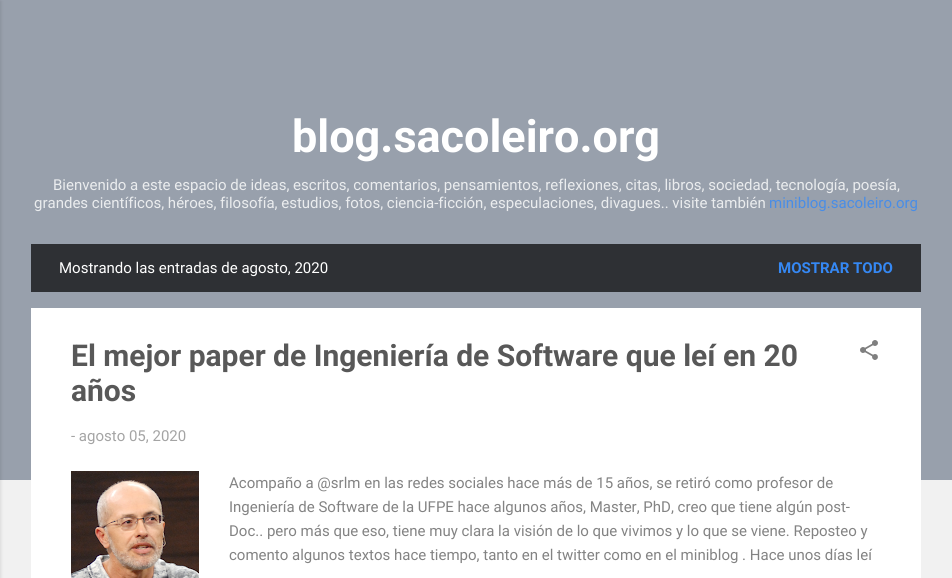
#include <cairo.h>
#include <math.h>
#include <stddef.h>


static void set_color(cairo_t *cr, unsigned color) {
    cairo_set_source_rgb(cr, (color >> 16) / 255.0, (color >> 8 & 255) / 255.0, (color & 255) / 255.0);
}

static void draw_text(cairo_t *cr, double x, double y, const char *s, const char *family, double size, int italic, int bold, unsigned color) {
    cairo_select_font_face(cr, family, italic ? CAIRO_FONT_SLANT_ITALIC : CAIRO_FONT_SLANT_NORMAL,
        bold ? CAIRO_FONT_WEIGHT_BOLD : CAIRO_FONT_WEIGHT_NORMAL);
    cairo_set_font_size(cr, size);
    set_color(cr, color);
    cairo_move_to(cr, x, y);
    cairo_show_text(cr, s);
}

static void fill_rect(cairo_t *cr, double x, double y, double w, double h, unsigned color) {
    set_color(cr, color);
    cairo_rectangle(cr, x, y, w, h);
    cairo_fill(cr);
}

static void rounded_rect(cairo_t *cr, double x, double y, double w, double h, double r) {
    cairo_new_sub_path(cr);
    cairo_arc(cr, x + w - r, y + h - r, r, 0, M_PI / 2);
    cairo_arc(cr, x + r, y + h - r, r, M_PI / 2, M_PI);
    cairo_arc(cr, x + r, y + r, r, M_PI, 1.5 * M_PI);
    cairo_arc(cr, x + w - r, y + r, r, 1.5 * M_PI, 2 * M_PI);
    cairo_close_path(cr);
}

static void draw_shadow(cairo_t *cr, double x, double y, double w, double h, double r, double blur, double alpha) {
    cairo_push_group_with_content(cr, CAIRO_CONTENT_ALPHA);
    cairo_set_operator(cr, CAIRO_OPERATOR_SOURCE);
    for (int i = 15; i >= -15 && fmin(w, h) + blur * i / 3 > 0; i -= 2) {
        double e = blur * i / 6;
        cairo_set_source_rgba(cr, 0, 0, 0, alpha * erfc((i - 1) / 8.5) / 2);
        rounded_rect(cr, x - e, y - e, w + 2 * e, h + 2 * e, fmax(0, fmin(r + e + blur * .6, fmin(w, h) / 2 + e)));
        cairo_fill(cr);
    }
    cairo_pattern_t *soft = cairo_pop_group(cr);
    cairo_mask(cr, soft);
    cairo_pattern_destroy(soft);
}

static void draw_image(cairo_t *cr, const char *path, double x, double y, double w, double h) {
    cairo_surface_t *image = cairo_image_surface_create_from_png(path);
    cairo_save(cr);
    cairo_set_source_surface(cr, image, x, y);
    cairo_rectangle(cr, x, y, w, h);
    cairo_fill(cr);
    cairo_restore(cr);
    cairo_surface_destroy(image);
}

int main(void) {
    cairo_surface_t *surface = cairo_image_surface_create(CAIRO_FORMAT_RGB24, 952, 578);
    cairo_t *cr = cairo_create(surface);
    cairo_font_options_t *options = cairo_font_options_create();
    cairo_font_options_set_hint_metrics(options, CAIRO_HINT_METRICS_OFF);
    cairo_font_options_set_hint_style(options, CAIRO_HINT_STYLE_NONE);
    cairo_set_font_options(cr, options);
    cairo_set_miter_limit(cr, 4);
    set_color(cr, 0xF1F1F1);
    cairo_paint(cr);
    fill_rect(cr, 0, 0, 952, 480, 0x98A0AC);
    set_color(cr, 0x000000);
    draw_shadow(cr, -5, 1, 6, 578, 0, 1.5, 0.1);
    draw_text(cr, 292, 152, "blog.sacoleiro.org", "Roboto", 45, 0, 1, 0xFFFFFF);
    draw_text(cr, 53, 190, "Bienvenido a este espacio de ideas, escritos, comentarios, pensamientos, reflexiones, citas, libros, sociedad, tecnología, poesía,", "Roboto", 15, 0, 0, 0xEAECEE);
    draw_text(cr, 34, 208, "grandes científicos, héroes, filosofía, estudios, fotos, ciencia-ficción, especulaciones, divagues.. visite también", "Roboto", 15, 0, 0, 0xEAECEE);
    draw_text(cr, 769, 208, "miniblog.sacoleiro.org", "Roboto", 15, 0, 0, 0x498DE6);
    fill_rect(cr, 31, 244, 890, 48, 0x2E3034);
    draw_text(cr, 59, 273, "Mostrando las entradas de agosto, 2020", "Roboto", 15, 0, 0, 0xFFFFFF);
    draw_text(cr, 778, 273, "MOSTRAR TODO", "Roboto", 15, 0, 1, 0x3588F4);
    fill_rect(cr, 31, 308, 890, 270, 0xFFFFFF);
    draw_text(cr, 71, 366, "El mejor paper de Ingeniería de Software que leí en 20", "Roboto", 30, 0, 1, 0x585858);
    draw_text(cr, 71, 401, "años", "Roboto", 30, 0, 1, 0x585858);
    draw_image(cr, "assets/img1.png", 860, 340, 18, 20);
    draw_text(cr, 71, 441, "- agosto 05, 2020", "Roboto", 15, 0, 0, 0xA4A4A4);
    draw_image(cr, "assets/img2.png", 71, 471, 128, 107);
    draw_text(cr, 229, 488, "Acompaño a @srlm en las redes sociales hace más de 15 años, se retiró como profesor de", "Roboto", 15, 0, 0, 0x838383);
    draw_text(cr, 229, 512, "Ingeniería de Software de la UFPE hace algunos años, Master, PhD, creo que tiene algún post-", "Roboto", 15, 0, 0, 0x838383);
    draw_text(cr, 229, 536, "Doc.. pero más que eso, tiene muy clara la visión de lo que vivimos y lo que se viene. Reposteo y", "Roboto", 15, 0, 0, 0x838383);
    draw_text(cr, 229, 560, "comento algunos textos hace tiempo, tanto en el twitter como en el miniblog . Hace unos días leí", "Roboto", 15, 0, 0, 0x838383);
    cairo_surface_write_to_png(surface, "output.png");
    cairo_font_options_destroy(options);
    cairo_destroy(cr);
    cairo_surface_destroy(surface);
    return 0;
}
